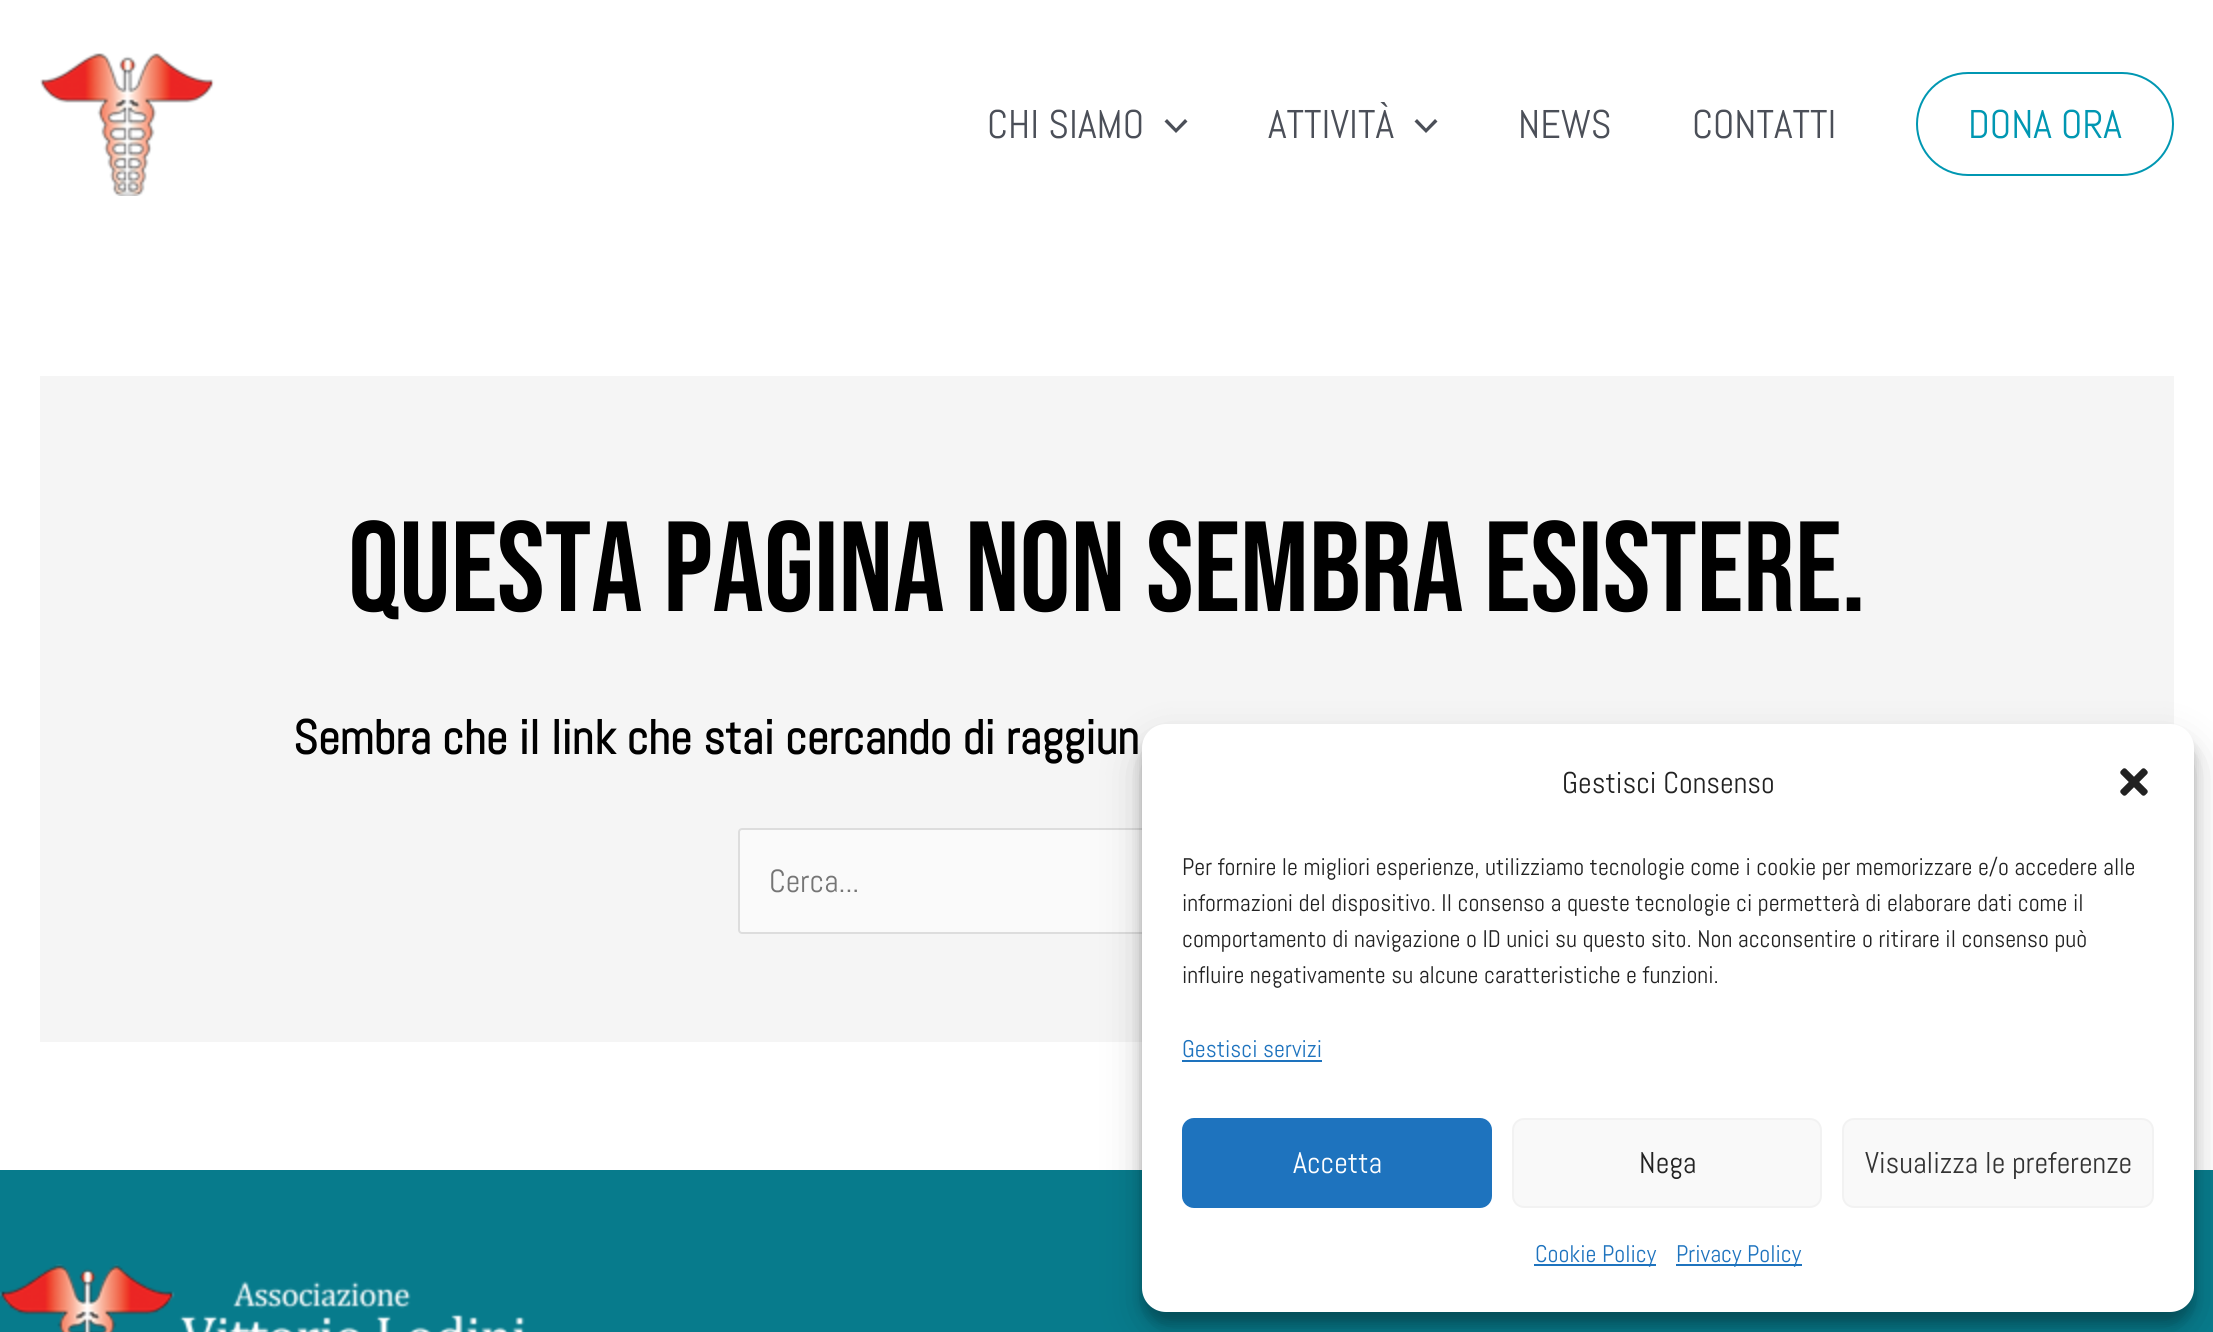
#include <cairo.h>
#include <math.h>
#include <stddef.h>


static void set_color(cairo_t *cr, unsigned color) {
    cairo_set_source_rgb(cr, (color >> 16) / 255.0, (color >> 8 & 255) / 255.0, (color & 255) / 255.0);
}

static void draw_text(cairo_t *cr, double x, double y, const char *s, const char *family, double size, int italic, int bold, unsigned color) {
    cairo_select_font_face(cr, family, italic ? CAIRO_FONT_SLANT_ITALIC : CAIRO_FONT_SLANT_NORMAL,
        bold ? CAIRO_FONT_WEIGHT_BOLD : CAIRO_FONT_WEIGHT_NORMAL);
    cairo_set_font_size(cr, size);
    set_color(cr, color);
    cairo_move_to(cr, x, y);
    cairo_show_text(cr, s);
}

static void fill_rect(cairo_t *cr, double x, double y, double w, double h, unsigned color) {
    set_color(cr, color);
    cairo_rectangle(cr, x, y, w, h);
    cairo_fill(cr);
}

static void rounded_rect(cairo_t *cr, double x, double y, double w, double h, double r) {
    cairo_new_sub_path(cr);
    cairo_arc(cr, x + w - r, y + h - r, r, 0, M_PI / 2);
    cairo_arc(cr, x + r, y + h - r, r, M_PI / 2, M_PI);
    cairo_arc(cr, x + r, y + r, r, M_PI, 1.5 * M_PI);
    cairo_arc(cr, x + w - r, y + r, r, 1.5 * M_PI, 2 * M_PI);
    cairo_close_path(cr);
}

static void draw_shadow(cairo_t *cr, double x, double y, double w, double h, double r, double blur, double alpha) {
    cairo_push_group_with_content(cr, CAIRO_CONTENT_ALPHA);
    cairo_set_operator(cr, CAIRO_OPERATOR_SOURCE);
    for (int i = 15; i >= -15 && fmin(w, h) + blur * i / 3 > 0; i -= 2) {
        double e = blur * i / 6;
        cairo_set_source_rgba(cr, 0, 0, 0, alpha * erfc((i - 1) / 8.5) / 2);
        rounded_rect(cr, x - e, y - e, w + 2 * e, h + 2 * e, fmax(0, fmin(r + e + blur * .6, fmin(w, h) / 2 + e)));
        cairo_fill(cr);
    }
    cairo_pattern_t *soft = cairo_pop_group(cr);
    cairo_mask(cr, soft);
    cairo_pattern_destroy(soft);
}

static void draw_image(cairo_t *cr, const char *path, double x, double y, double w, double h) {
    cairo_surface_t *image = cairo_image_surface_create_from_png(path);
    cairo_save(cr);
    cairo_set_source_surface(cr, image, x, y);
    cairo_rectangle(cr, x, y, w, h);
    cairo_fill(cr);
    cairo_restore(cr);
    cairo_surface_destroy(image);
}

int main(void) {
    cairo_surface_t *surface = cairo_image_surface_create(CAIRO_FORMAT_RGB24, 2213, 1332);
    cairo_t *cr = cairo_create(surface);
    cairo_font_options_t *options = cairo_font_options_create();
    cairo_font_options_set_hint_metrics(options, CAIRO_HINT_METRICS_OFF);
    cairo_font_options_set_hint_style(options, CAIRO_HINT_STYLE_NONE);
    cairo_set_font_options(cr, options);
    cairo_set_miter_limit(cr, 4);
    set_color(cr, 0xFFFFFF);
    cairo_paint(cr);
    draw_image(cr, "assets/img1.png", 40, 53, 175, 143);
    draw_text(cr, 987, 138, "CHI SIAMO", "Abel", 40, 0, 0, 0x4B4F58);
    cairo_new_path(cr);
    cairo_move_to(cr, 1164.5, 121.5);
    cairo_line_to(cr, 1176, 133);
    cairo_line_to(cr, 1187.5, 121.5);
    cairo_line_to(cr, 1185, 119);
    cairo_line_to(cr, 1176, 128.5);
    cairo_line_to(cr, 1167, 119);
    cairo_close_path(cr);
    cairo_fill(cr);
    draw_text(cr, 1268, 138, "ATTIVITÀ", "Abel", 40, 0, 0, 0x4B4F58);
    cairo_new_path(cr);
    cairo_move_to(cr, 1414.5, 121.5);
    cairo_line_to(cr, 1426, 133);
    cairo_line_to(cr, 1437.5, 121.5);
    cairo_line_to(cr, 1435, 119);
    cairo_line_to(cr, 1426, 128.5);
    cairo_line_to(cr, 1417, 119);
    cairo_close_path(cr);
    cairo_fill(cr);
    draw_text(cr, 1518, 138, "NEWS", "Abel", 40, 0, 0, 0x4B4F58);
    draw_text(cr, 1692, 138, "CONTATTI", "Abel", 40, 0, 0, 0x4B4F58);
    rounded_rect(cr, 1917, 73, 256, 102, 51);
    set_color(cr, 0x0097B2);
    cairo_stroke(cr);
    draw_text(cr, 1968, 138, "DONA ORA", "Abel", 40, 0, 0, 0x0097B2);
    fill_rect(cr, 40, 376, 2134, 666, 0xF5F5F5);
    draw_text(cr, 348, 611, "Questa pagina non sembra esistere.", "Bebas Neue", 128, 0, 0, 0x000000);
    draw_text(cr, 293, 754, "Sembra che il link che stai cercando di raggiun", "Abel", 48, 0, 1, 0x000000);
    set_color(cr, 0xFAFAFA);
    rounded_rect(cr, 739, 829, 738, 104, 3);
    cairo_fill_preserve(cr);
    set_color(cr, 0xDDDDDD);
    cairo_stroke(cr);
    draw_text(cr, 769, 892, "Cerca...", "Abel", 32, 0, 0, 0x757575);
    fill_rect(cr, 0, 1170, 2213, 162, 0x077B8C);
    draw_image(cr, "assets/img2.png", 0, 1264, 525, 68);
    set_color(cr, 0x000000);
    draw_shadow(cr, 1142, 736, 1052, 588, 24, 6, 0.23);
    draw_shadow(cr, 1142, 744, 1052, 588, 24, 20, 0.19);
    set_color(cr, 0xFFFFFF);
    rounded_rect(cr, 1142, 724, 1052, 588, 24);
    cairo_fill(cr);
    draw_text(cr, 1562, 793, "Gestisci Consenso", "Abel", 30, 0, 0, 0x222222);
    draw_image(cr, "assets/img3.png", 2120, 768, 28, 28);
    draw_text(cr, 1182, 875, "Per fornire le migliori esperienze, utilizziamo tecnologie come i cookie per memorizzare e/o accedere alle", "Abel", 24, 0, 0, 0x222222);
    draw_text(cr, 1182, 911, "informazioni del dispositivo. Il consenso a queste tecnologie ci permetterà di elaborare dati come il", "Abel", 24, 0, 0, 0x222222);
    draw_text(cr, 1182, 947, "comportamento di navigazione o ID unici su questo sito. Non acconsentire o ritirare il consenso può", "Abel", 24, 0, 0, 0x222222);
    draw_text(cr, 1182, 983, "influire negativamente su alcune caratteristiche e funzioni.", "Abel", 24, 0, 0, 0x222222);
    draw_text(cr, 1182, 1057, "Gestisci servizi", "Abel", 24, 0, 0, 0x1E73BE);
    fill_rect(cr, 1182, 1060, 140, 2, 0x1E73BE);
    rounded_rect(cr, 1183, 1119, 308, 88, 11);
    cairo_fill_preserve(cr);
    cairo_stroke(cr);
    draw_text(cr, 1293, 1173, "Accetta", "Abel", 30, 0, 0, 0xFFFFFF);
    set_color(cr, 0xF9F9F9);
    rounded_rect(cr, 1513, 1119, 308, 88, 11);
    cairo_fill_preserve(cr);
    set_color(cr, 0xF2F2F2);
    cairo_stroke(cr);
    draw_text(cr, 1639, 1173, "Nega", "Abel", 30, 0, 0, 0x222222);
    set_color(cr, 0xF9F9F9);
    rounded_rect(cr, 1843, 1119, 310, 88, 11);
    cairo_fill_preserve(cr);
    set_color(cr, 0xF2F2F2);
    cairo_stroke(cr);
    draw_text(cr, 1865, 1173, "Visualizza le preferenze", "Abel", 30, 0, 0, 0x333333);
    fill_rect(cr, 1534, 1264, 122, 2, 0x1E73BE);
    draw_text(cr, 1535, 1262, "Cookie Policy", "Abel", 24, 0, 0, 0x1E73BE);
    fill_rect(cr, 1676, 1264, 126, 2, 0x1E73BE);
    draw_text(cr, 1676, 1262, "Privacy Policy", "Abel", 24, 0, 0, 0x1E73BE);
    cairo_surface_write_to_png(surface, "output.png");
    cairo_font_options_destroy(options);
    cairo_destroy(cr);
    cairo_surface_destroy(surface);
    return 0;
}
